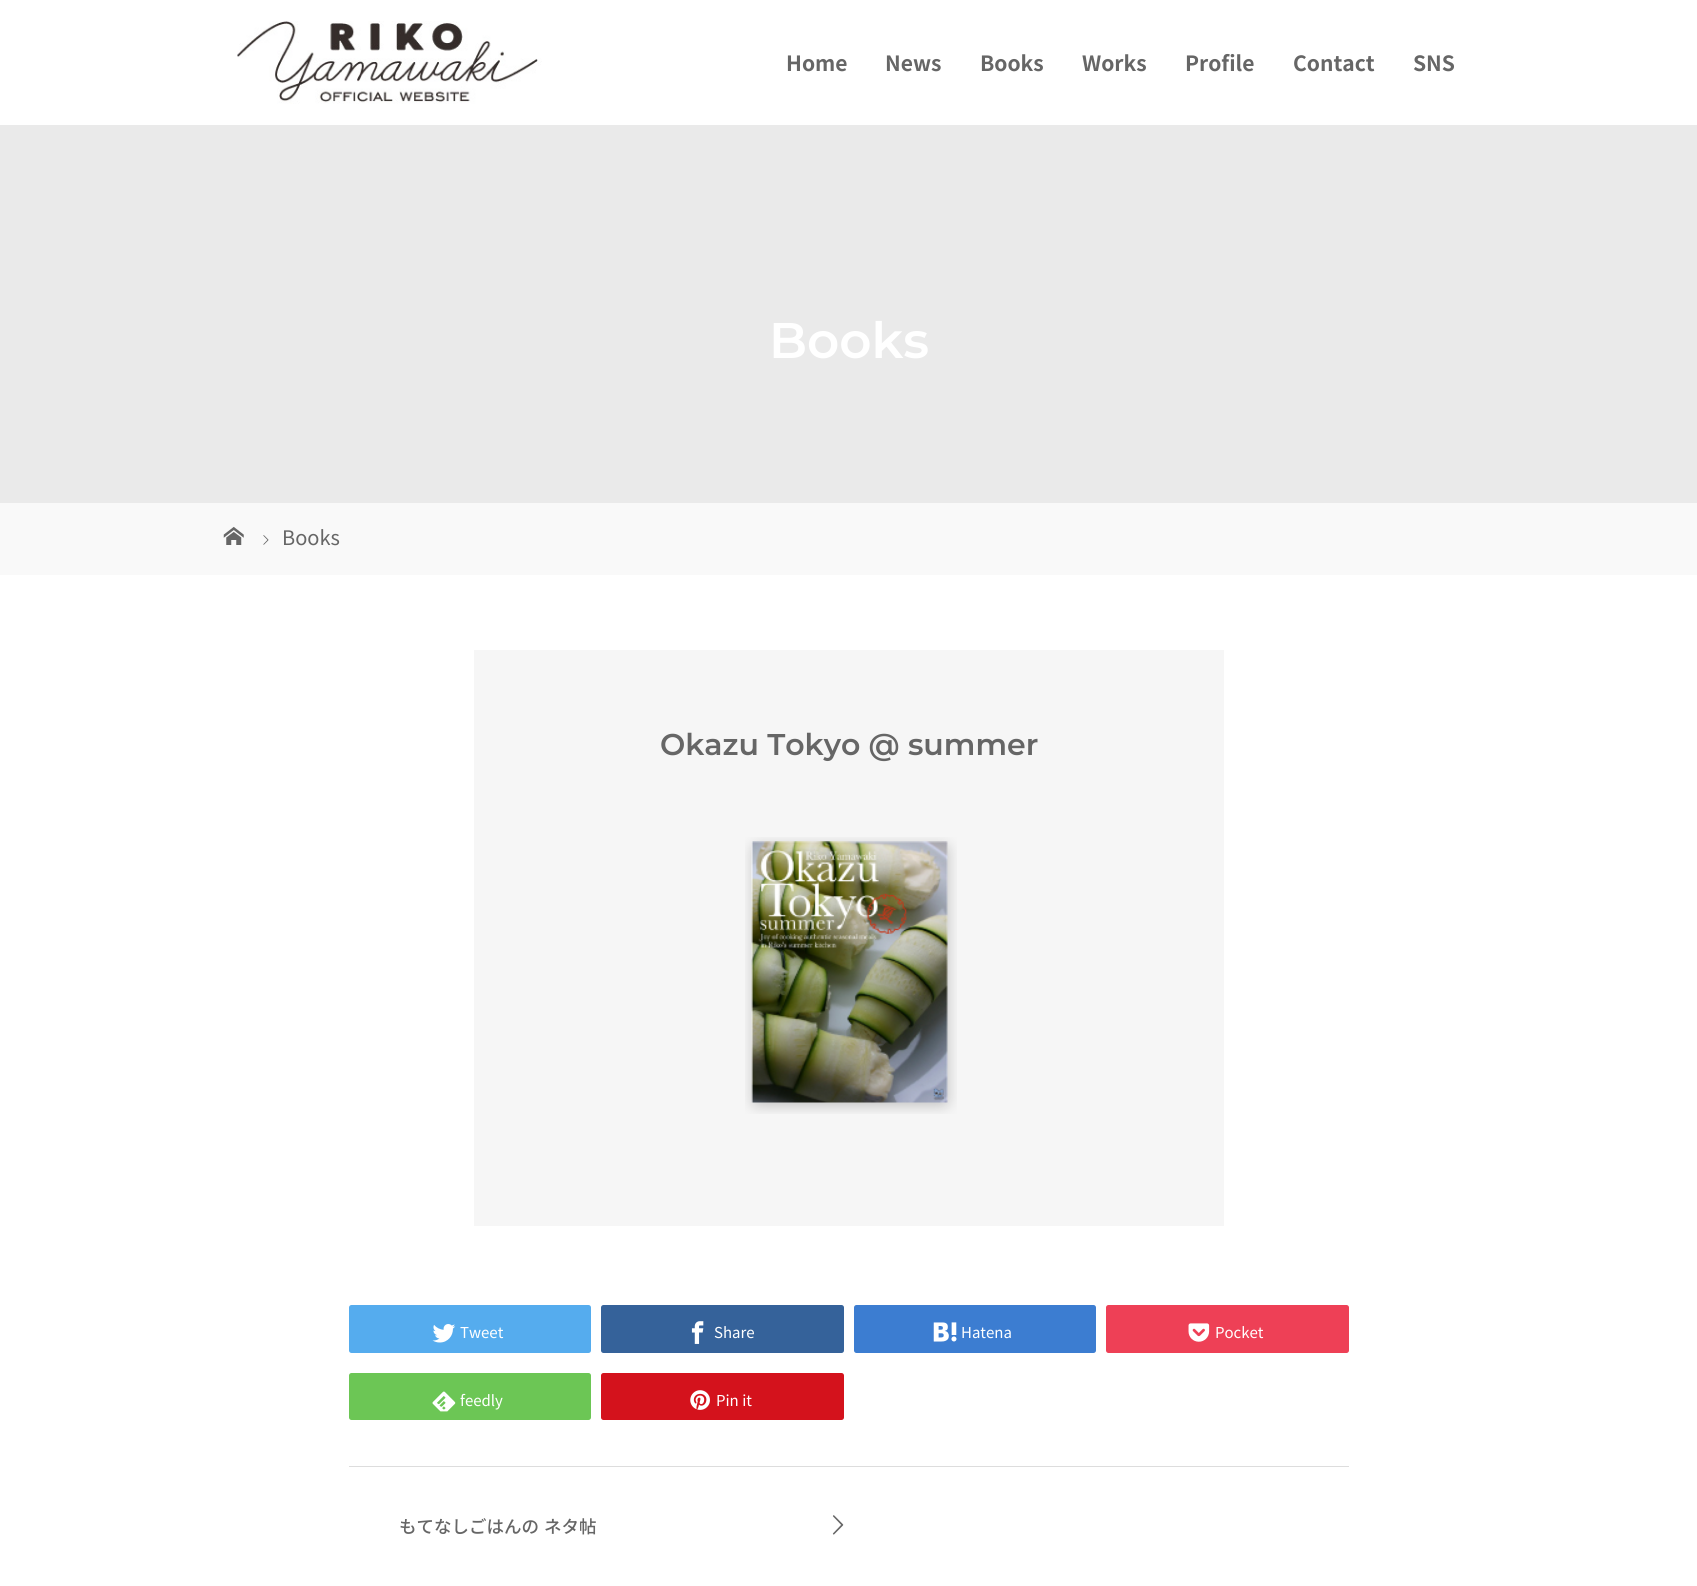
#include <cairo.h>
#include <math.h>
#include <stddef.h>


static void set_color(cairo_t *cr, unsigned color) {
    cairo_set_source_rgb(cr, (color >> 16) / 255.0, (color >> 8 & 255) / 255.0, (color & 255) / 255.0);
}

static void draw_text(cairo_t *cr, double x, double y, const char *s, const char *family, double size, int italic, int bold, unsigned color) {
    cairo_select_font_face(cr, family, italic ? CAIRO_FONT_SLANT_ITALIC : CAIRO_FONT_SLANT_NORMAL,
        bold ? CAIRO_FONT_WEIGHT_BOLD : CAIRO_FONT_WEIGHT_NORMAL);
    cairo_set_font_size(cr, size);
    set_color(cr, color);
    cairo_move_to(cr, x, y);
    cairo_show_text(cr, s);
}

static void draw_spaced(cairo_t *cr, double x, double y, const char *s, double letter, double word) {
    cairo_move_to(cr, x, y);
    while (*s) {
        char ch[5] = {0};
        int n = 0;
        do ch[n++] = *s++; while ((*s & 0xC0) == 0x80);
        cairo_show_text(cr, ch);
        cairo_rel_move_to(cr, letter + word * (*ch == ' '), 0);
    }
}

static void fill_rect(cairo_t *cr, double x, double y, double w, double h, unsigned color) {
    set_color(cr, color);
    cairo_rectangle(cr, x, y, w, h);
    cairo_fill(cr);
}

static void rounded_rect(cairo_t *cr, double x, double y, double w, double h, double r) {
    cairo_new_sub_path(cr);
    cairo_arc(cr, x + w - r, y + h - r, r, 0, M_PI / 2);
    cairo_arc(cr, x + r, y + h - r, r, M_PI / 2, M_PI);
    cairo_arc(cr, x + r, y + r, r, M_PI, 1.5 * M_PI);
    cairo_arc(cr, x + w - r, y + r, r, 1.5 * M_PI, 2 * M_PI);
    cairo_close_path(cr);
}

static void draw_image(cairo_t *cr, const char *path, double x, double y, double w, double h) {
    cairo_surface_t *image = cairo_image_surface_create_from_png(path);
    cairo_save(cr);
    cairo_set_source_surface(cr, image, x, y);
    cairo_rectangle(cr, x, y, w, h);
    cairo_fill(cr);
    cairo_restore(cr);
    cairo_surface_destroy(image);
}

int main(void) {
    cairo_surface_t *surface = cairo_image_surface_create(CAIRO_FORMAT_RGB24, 1697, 1586);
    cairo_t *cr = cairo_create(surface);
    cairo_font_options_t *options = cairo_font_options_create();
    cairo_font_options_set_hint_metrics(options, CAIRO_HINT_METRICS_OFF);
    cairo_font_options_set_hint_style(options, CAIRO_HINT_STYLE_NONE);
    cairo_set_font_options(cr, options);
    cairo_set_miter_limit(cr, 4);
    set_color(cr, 0xFFFFFF);
    cairo_paint(cr);
    draw_image(cr, "assets/img1.png", 237, 21, 305, 83);
    draw_text(cr, 786, 71, "Home", "Noto Sans JP", 21, 0, 1, 0x666666);
    draw_text(cr, 885, 71, "News", "Noto Sans JP", 21, 0, 1, 0x666666);
    draw_text(cr, 980, 71, "Books", "Noto Sans JP", 21, 0, 1, 0x666666);
    draw_text(cr, 1082, 71, "Works", "Noto Sans JP", 21, 0, 1, 0x666666);
    draw_text(cr, 1185, 71, "Profile", "Noto Sans JP", 21, 0, 1, 0x666666);
    draw_text(cr, 1293, 71, "Contact", "Noto Sans JP", 21, 0, 1, 0x666666);
    draw_text(cr, 1413, 71, "SNS", "Noto Sans JP", 21, 0, 1, 0x666666);
    fill_rect(cr, 0, 125, 1697, 378, 0xEAEAEA);
    draw_text(cr, 769, 358, "Books", "Montserrat SemiBold", 50, 0, 0, 0xFFFFFF);
    fill_rect(cr, 0, 503, 1697, 72, 0xF9F9F9);
    draw_image(cr, "assets/img2.png", 223, 526, 21, 19);
    draw_image(cr, "assets/img3.png", 263, 535, 6, 10);
    draw_text(cr, 282, 545, "Books", "Noto Sans JP", 20, 0, 0, 0x666666);
    fill_rect(cr, 474, 650, 750, 576, 0xF6F6F6);
    draw_text(cr, 660, 755, "Okazu Tokyo @ summer", "Montserrat SemiBold", 30, 0, 0, 0x666666);
    draw_image(cr, "assets/img4.png", 745, 837, 212, 277);
    set_color(cr, 0x55ACEE);
    rounded_rect(cr, 349, 1305, 242, 48, 2.5);
    cairo_fill(cr);
    draw_image(cr, "assets/img5.png", 432, 1324, 24, 19);
    draw_text(cr, 460, 1338, "Tweet", "Noto Sans JP", 15, 0, 0, 0xFFFFFF);
    set_color(cr, 0x35629A);
    rounded_rect(cr, 601, 1305, 243, 48, 2.5);
    cairo_fill(cr);
    draw_image(cr, "assets/img6.png", 691, 1321, 13, 23);
    draw_text(cr, 714, 1338, "Share", "Noto Sans JP", 15, 0, 0, 0xFFFFFF);
    set_color(cr, 0x3C7DD1);
    rounded_rect(cr, 854, 1305, 242, 48, 2.5);
    cairo_fill(cr);
    draw_image(cr, "assets/img7.png", 933, 1322, 24, 20);
    draw_text(cr, 961, 1338, "Hatena", "Noto Sans JP", 15, 0, 0, 0xFFFFFF);
    set_color(cr, 0xEE4056);
    rounded_rect(cr, 1106, 1305, 243, 48, 2.5);
    cairo_fill(cr);
    draw_image(cr, "assets/img8.png", 1188, 1323, 22, 19);
    draw_text(cr, 1215, 1338, "Pocket", "Noto Sans JP", 15, 0, 0, 0xFFFFFF);
    set_color(cr, 0x6CC655);
    rounded_rect(cr, 349, 1373, 242, 47, 2.5);
    cairo_fill(cr);
    draw_image(cr, "assets/img9.png", 432, 1391, 24, 21);
    draw_text(cr, 460, 1406, "feedly", "Noto Sans JP", 15, 0, 0, 0xFFFFFF);
    set_color(cr, 0xD4121C);
    rounded_rect(cr, 601, 1373, 243, 47, 2.5);
    cairo_fill(cr);
    draw_image(cr, "assets/img10.png", 690, 1390, 20, 20);
    draw_text(cr, 716, 1406, "Pin it", "Noto Sans JP", 15, 0, 0, 0xFFFFFF);
    fill_rect(cr, 349, 1466, 1000, 1, 0xDDDDDD);
    cairo_select_font_face(cr, "Noto Sans JP Medium", CAIRO_FONT_SLANT_NORMAL, CAIRO_FONT_WEIGHT_NORMAL);
    cairo_set_font_size(cr, 17.5);
    set_color(cr, 0x666666);
    draw_spaced(cr, 399, 1533, "もてなしごはんの ネタ帖", 0, 1);
    draw_image(cr, "assets/img11.png", 832, 1515, 12, 20);
    cairo_surface_write_to_png(surface, "output.png");
    cairo_font_options_destroy(options);
    cairo_destroy(cr);
    cairo_surface_destroy(surface);
    return 0;
}
